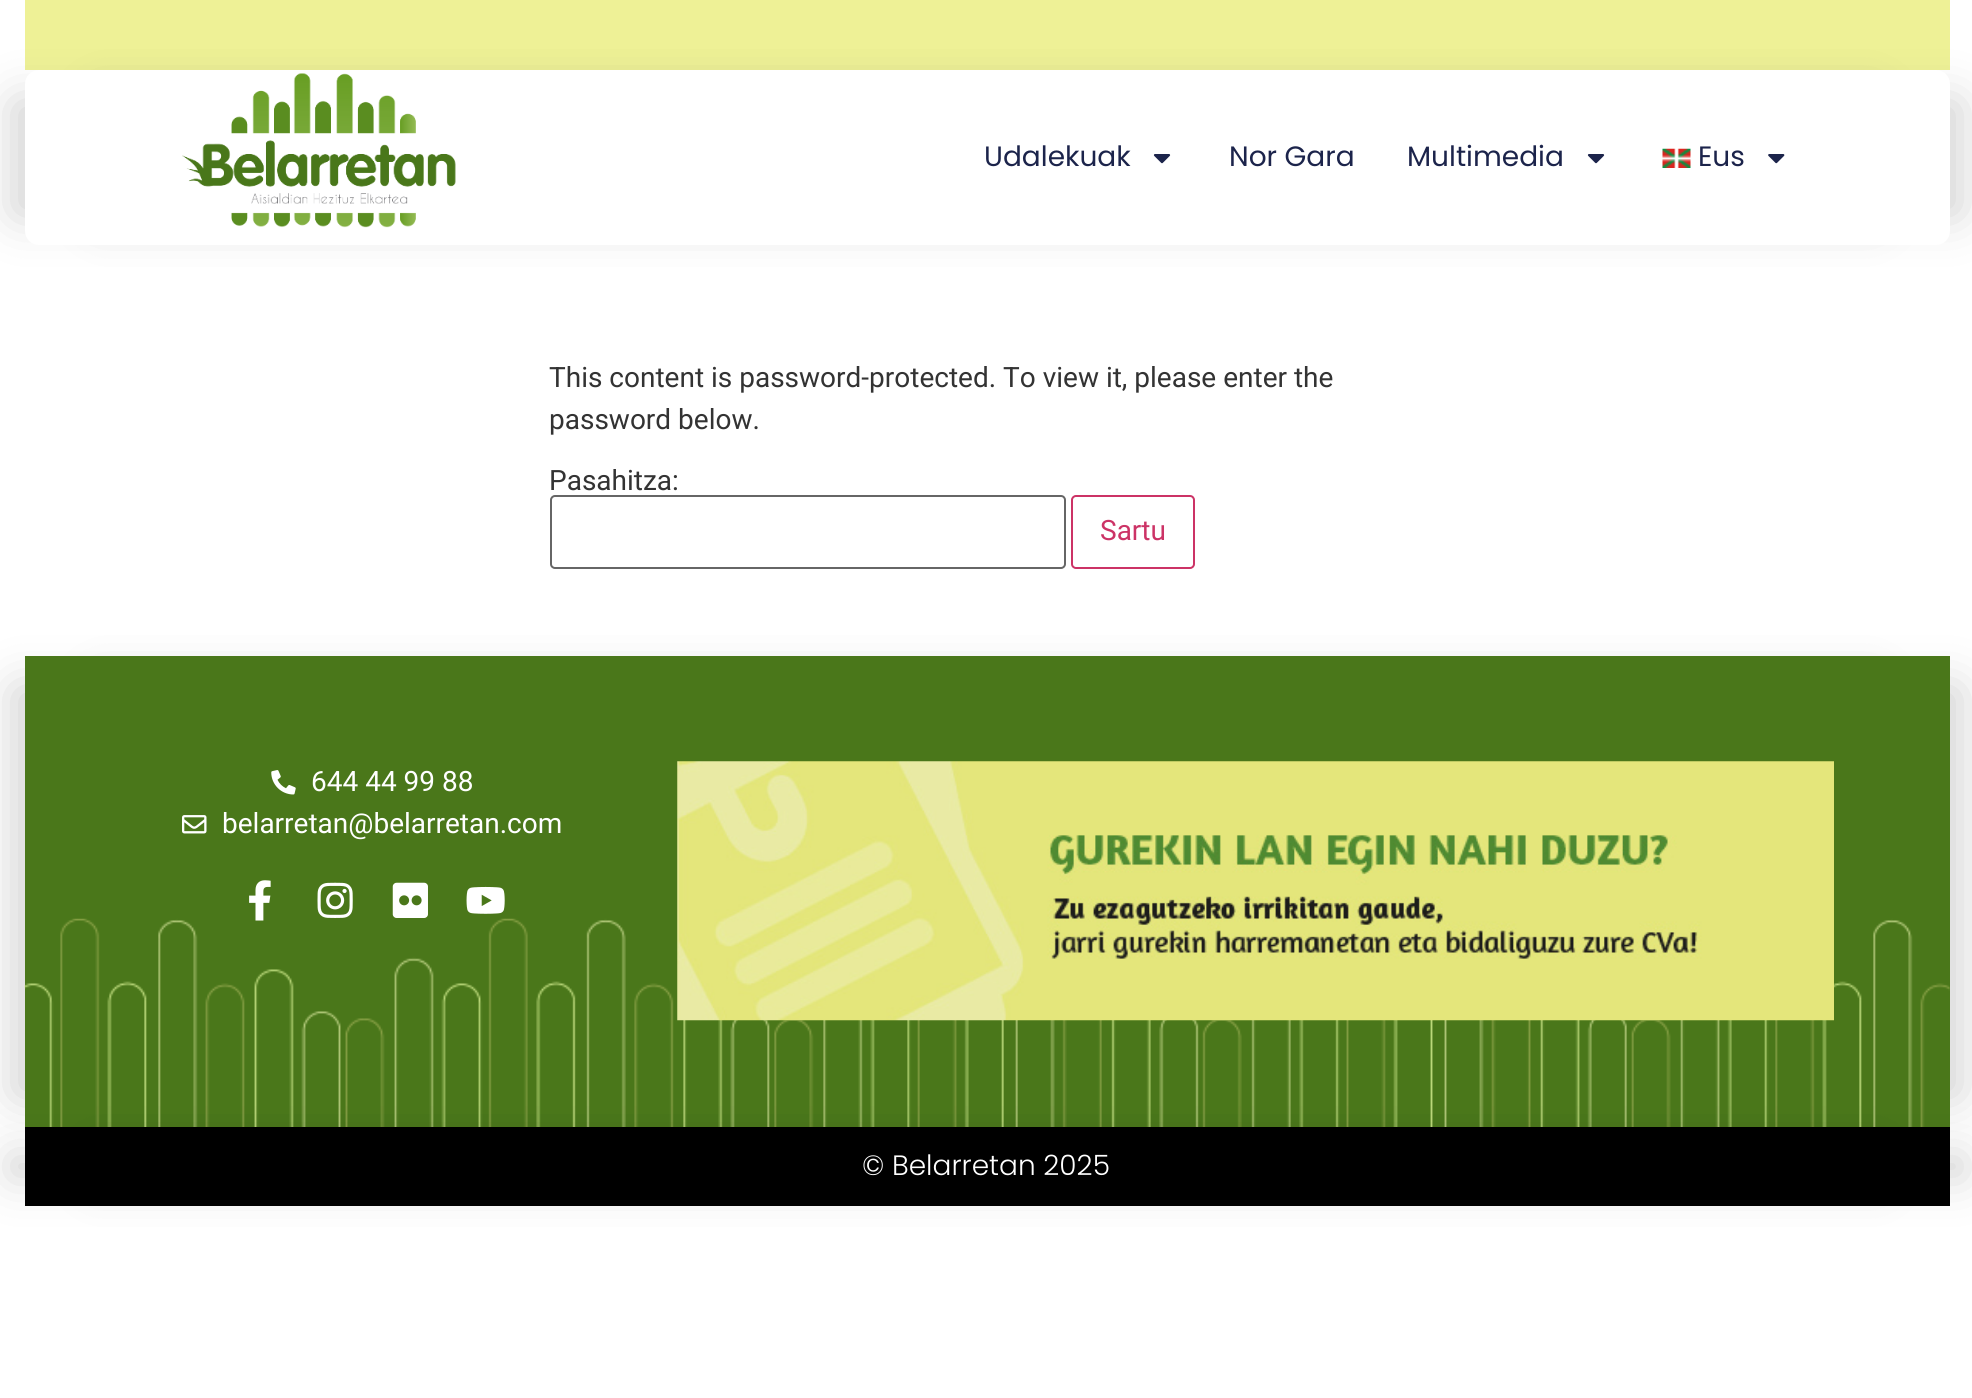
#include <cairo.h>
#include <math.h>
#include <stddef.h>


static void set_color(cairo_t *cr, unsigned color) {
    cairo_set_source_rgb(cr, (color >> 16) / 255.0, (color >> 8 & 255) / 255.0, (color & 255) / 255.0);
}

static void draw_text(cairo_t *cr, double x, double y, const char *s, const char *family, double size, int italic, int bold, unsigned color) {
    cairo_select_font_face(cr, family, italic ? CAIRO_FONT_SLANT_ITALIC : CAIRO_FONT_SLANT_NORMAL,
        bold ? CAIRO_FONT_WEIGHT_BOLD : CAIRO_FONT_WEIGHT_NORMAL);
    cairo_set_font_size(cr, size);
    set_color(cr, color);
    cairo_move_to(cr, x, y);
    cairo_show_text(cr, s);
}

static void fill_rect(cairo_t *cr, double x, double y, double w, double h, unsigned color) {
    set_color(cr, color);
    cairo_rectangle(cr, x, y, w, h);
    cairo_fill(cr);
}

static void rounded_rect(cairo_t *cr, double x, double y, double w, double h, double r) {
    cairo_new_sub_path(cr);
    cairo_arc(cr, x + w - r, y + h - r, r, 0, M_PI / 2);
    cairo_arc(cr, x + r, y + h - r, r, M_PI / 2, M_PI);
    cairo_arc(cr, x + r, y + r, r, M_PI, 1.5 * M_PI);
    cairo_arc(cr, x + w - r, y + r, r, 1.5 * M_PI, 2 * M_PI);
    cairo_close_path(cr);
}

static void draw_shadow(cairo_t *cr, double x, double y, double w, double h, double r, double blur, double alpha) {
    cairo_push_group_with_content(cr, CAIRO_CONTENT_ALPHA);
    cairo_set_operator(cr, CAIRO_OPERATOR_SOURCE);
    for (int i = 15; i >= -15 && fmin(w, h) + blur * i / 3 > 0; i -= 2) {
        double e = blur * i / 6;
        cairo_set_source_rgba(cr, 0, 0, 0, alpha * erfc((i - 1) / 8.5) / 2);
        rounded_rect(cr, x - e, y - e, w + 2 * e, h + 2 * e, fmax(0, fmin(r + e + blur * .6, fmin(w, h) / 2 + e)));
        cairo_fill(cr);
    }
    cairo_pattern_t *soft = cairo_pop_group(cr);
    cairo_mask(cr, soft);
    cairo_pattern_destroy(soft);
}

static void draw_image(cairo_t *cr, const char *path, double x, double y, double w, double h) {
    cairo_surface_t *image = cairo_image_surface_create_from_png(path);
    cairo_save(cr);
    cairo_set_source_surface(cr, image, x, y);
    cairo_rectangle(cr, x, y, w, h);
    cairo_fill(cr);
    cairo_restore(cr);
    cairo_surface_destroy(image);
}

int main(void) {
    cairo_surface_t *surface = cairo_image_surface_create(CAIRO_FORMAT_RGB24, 1972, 1398);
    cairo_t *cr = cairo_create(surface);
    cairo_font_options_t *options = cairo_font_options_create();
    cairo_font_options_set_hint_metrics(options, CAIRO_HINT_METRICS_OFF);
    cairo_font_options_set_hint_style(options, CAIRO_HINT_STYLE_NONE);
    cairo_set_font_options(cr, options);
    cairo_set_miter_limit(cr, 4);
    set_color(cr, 0xFFFFFF);
    cairo_paint(cr);
    fill_rect(cr, 25, 0, 1925, 70, 0xEEF196);
    set_color(cr, 0x000000);
    draw_shadow(cr, 98, 102, 1862, 112, 0, 24.5, 0.18);
    draw_shadow(cr, 14, 102, 1862, 112, 0, 24.5, 0.18);
    set_color(cr, 0xFFFFFF);
    rounded_rect(cr, 25, 70, 1925, 175, 14);
    cairo_fill(cr);
    draw_image(cr, "assets/img1.png", 182, 73, 274, 155);
    draw_text(cr, 984, 166, "Udalekuak", "Poppins", 28, 0, 0, 0x1C244B);
    draw_image(cr, "assets/img2.png", 1153, 154, 18, 10);
    draw_text(cr, 1229, 166, "Nor Gara", "Poppins", 28, 0, 0, 0x1C244B);
    draw_text(cr, 1407, 166, "Multimedia", "Poppins", 28, 0, 0, 0x1C244B);
    draw_image(cr, "assets/img2.png", 1587, 154, 18, 10);
    draw_image(cr, "assets/img3.png", 1662, 148, 29, 20);
    draw_text(cr, 1698, 166, "Eus", "Poppins", 28, 0, 0, 0x1C244B);
    draw_image(cr, "assets/img4.png", 1768, 154, 17, 10);
    draw_text(cr, 549, 387, "This content is password-protected. To view it, please enter the", "Roboto", 28, 0, 0, 0x333333);
    draw_text(cr, 549, 429, "password below.", "Roboto", 28, 0, 0, 0x333333);
    draw_text(cr, 549, 490, "Pasahitza:", "Roboto", 28, 0, 0, 0x333333);
    rounded_rect(cr, 551, 496, 514, 72, 4);
    set_color(cr, 0x666666);
    cairo_stroke(cr);
    rounded_rect(cr, 1072, 496, 122, 72, 4);
    set_color(cr, 0xCC3366);
    cairo_stroke(cr);
    draw_text(cr, 1100, 540, "Sartu", "Roboto", 28, 0, 0, 0xCC3366);
    set_color(cr, 0x000000);
    draw_shadow(cr, 98, 688, 1862, 408, 0, 24.5, 0.18);
    draw_shadow(cr, 14, 688, 1862, 408, 0, 24.5, 0.18);
    fill_rect(cr, 25, 656, 1925, 471, 0x4A771A);
    draw_image(cr, "assets/img5.png", 24, 918, 1926, 209);
    draw_image(cr, "assets/img6.png", 271, 770, 25, 25);
    draw_text(cr, 311, 791, "644 44 99 88", "Roboto", 28, 0, 0, 0xFFFFFF);
    draw_image(cr, "assets/img7.png", 182, 815, 25, 19);
    draw_text(cr, 222, 833, "belarretan@belarretan.com", "Roboto", 28, 0, 0, 0xFFFFFF);
    draw_image(cr, "assets/img8.png", 249, 880, 22, 41);
    draw_image(cr, "assets/img9.png", 317, 882, 36, 36);
    draw_image(cr, "assets/img10.png", 392, 882, 36, 36);
    draw_image(cr, "assets/img11.png", 466, 886, 39, 28);
    draw_image(cr, "assets/img12.png", 677, 761, 1157, 260);
    set_color(cr, 0x000000);
    draw_shadow(cr, 98, 1159, 1862, 15, 0, 24.5, 0.18);
    draw_shadow(cr, 14, 1159, 1862, 15, 0, 24.5, 0.18);
    fill_rect(cr, 25, 1127, 1925, 79, 0x000000);
    draw_text(cr, 862, 1175, "© Belarretan 2025", "Poppins Light", 28, 0, 0, 0xFFFFFF);
    cairo_surface_write_to_png(surface, "output.png");
    cairo_font_options_destroy(options);
    cairo_destroy(cr);
    cairo_surface_destroy(surface);
    return 0;
}
